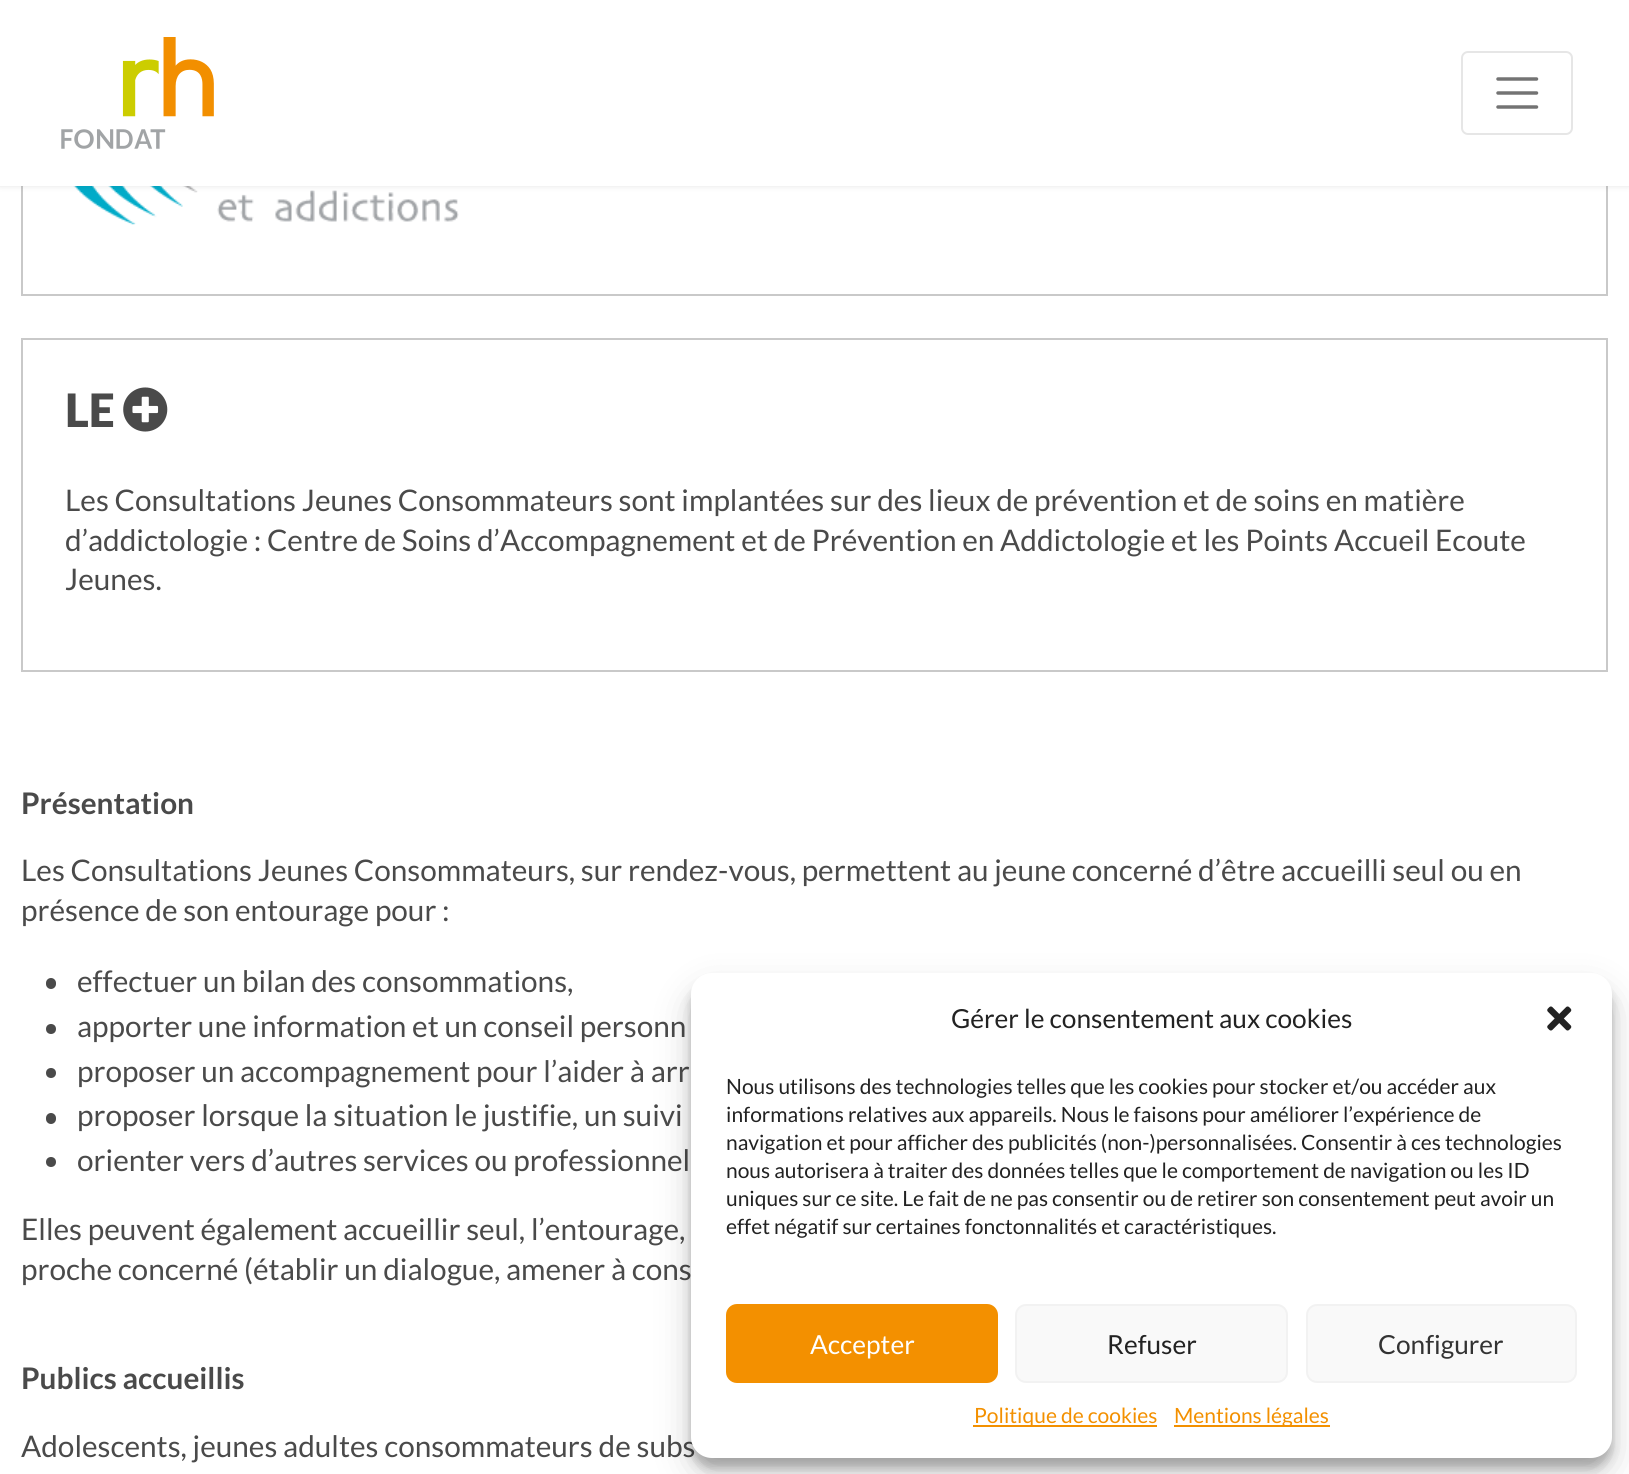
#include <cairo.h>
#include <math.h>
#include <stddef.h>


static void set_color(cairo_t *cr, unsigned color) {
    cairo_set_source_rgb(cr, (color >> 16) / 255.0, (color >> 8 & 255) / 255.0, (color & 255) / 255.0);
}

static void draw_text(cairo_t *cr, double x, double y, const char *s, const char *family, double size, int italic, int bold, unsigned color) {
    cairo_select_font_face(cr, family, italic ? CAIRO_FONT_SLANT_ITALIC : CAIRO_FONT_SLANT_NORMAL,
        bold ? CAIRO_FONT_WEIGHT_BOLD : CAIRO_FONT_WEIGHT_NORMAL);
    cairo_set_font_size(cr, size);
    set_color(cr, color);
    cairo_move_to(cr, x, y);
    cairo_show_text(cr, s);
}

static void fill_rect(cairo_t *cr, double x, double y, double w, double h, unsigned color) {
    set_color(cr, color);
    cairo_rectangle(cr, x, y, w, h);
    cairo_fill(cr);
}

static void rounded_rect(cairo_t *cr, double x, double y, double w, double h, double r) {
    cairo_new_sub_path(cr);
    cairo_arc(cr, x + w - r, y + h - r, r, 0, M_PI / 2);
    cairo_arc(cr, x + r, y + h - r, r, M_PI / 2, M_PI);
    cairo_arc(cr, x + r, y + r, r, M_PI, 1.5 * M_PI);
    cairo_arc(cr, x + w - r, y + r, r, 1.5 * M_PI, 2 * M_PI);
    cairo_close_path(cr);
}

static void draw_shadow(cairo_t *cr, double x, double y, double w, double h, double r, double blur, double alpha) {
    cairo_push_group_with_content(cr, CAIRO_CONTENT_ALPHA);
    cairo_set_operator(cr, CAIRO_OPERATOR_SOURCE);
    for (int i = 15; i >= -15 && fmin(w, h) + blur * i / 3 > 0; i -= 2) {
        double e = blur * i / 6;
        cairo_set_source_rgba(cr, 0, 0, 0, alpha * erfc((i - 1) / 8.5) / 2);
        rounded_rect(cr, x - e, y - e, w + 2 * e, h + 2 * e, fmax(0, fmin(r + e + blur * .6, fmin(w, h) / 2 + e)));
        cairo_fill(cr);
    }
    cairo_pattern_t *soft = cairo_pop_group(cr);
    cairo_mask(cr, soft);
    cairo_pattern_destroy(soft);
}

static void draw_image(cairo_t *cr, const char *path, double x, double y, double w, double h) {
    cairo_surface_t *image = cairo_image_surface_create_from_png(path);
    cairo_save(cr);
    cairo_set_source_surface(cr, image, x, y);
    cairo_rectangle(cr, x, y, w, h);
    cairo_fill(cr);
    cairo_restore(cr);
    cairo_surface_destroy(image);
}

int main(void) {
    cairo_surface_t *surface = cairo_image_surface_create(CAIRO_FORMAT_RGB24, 1629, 1474);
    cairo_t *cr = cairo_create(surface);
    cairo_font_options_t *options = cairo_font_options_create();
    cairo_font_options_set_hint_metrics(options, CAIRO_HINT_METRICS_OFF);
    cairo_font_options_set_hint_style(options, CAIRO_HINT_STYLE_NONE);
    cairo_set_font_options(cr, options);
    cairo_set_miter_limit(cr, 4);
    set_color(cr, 0xFFFFFF);
    cairo_paint(cr);
    cairo_rectangle(cr, 22, -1, 1585, 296);
    set_color(cr, 0xC9C9C9);
    cairo_stroke(cr);
    draw_image(cr, "assets/img2.png", 73, 186, 386, 39);
    set_color(cr, 0x000000);
    draw_shadow(cr, 0, 0, 1629, 182, 0, 4.5, 0.3);
    fill_rect(cr, 0, 0, 1629, 186, 0xFFFFFF);
    draw_image(cr, "assets/img1.png", 61, 37, 153, 112);
    rounded_rect(cr, 1462, 52, 110, 82, 6);
    set_color(cr, 0xE6E6E6);
    cairo_stroke(cr);
    cairo_new_path(cr);
    cairo_move_to(cr, 1498, 79);
    cairo_line_to(cr, 1536.5, 79);
    cairo_move_to(cr, 1498, 93);
    cairo_line_to(cr, 1536.5, 93);
    cairo_move_to(cr, 1498, 107);
    cairo_line_to(cr, 1536.5, 107);
    set_color(cr, 0x737373);
    cairo_set_line_width(cr, 3.5);
    cairo_set_line_cap(cr, CAIRO_LINE_CAP_ROUND);
    cairo_stroke(cr);
    cairo_rectangle(cr, 22, 339, 1585, 332);
    set_color(cr, 0xC9C9C9);
    cairo_set_line_width(cr, 2);
    cairo_set_line_cap(cr, CAIRO_LINE_CAP_BUTT);
    cairo_stroke(cr);
    draw_text(cr, 65, 427, "LE", "Lato Black", 46, 0, 0, 0x4A4A4A);
    draw_image(cr, "assets/img3.png", 123, 387, 45, 45);
    draw_text(cr, 65, 511, "Les Consultations Jeunes Consommateurs sont implantées sur des lieux de prévention et de soins en matière", "Lato", 29.75, 0, 0, 0x4A4A4A);
    draw_text(cr, 65, 551, "d’addictologie : Centre de Soins d’Accompagnement et de Prévention en Addictologie et les Points Accueil Ecoute", "Lato", 29.75, 0, 0, 0x4A4A4A);
    draw_text(cr, 65, 590, "Jeunes.", "Lato", 29.75, 0, 0, 0x4A4A4A);
    draw_text(cr, 21, 814, "Présentation", "Lato", 29.75, 0, 1, 0x4A4A4A);
    draw_text(cr, 21, 881, "Les Consultations Jeunes Consommateurs, sur rendez-vous, permettent au jeune concerné d’être accueilli seul ou en", "Lato", 29.75, 0, 0, 0x4A4A4A);
    draw_text(cr, 21, 921, "présence de son entourage pour :", "Lato", 29.75, 0, 0, 0x4A4A4A);
    rounded_rect(cr, 46, 978, 10, 11, 5);
    cairo_fill(cr);
    draw_text(cr, 77, 992, "effectuer un bilan des consommations,", "Lato", 29.75, 0, 0, 0x4A4A4A);
    cairo_new_path(cr);
    cairo_arc(cr, 51, 1029, 5, 0, 2 * M_PI);
    cairo_fill(cr);
    draw_text(cr, 77, 1037, "apporter une information et un conseil personn", "Lato", 29.75, 0, 0, 0x4A4A4A);
    cairo_new_path(cr);
    cairo_arc(cr, 51, 1073, 5, 0, 2 * M_PI);
    cairo_fill(cr);
    draw_text(cr, 77, 1082, "proposer un accompagnement pour l’aider à arr", "Lato", 29.75, 0, 0, 0x4A4A4A);
    rounded_rect(cr, 46, 1113, 10, 11, 5);
    cairo_fill(cr);
    draw_text(cr, 77, 1126, "proposer lorsque la situation le justifie, un suivi", "Lato", 29.75, 0, 0, 0x4A4A4A);
    cairo_new_path(cr);
    cairo_arc(cr, 51, 1162, 5, 0, 2 * M_PI);
    cairo_fill(cr);
    draw_text(cr, 77, 1171, "orienter vers d’autres services ou professionnel", "Lato", 29.75, 0, 0, 0x4A4A4A);
    draw_text(cr, 21, 1240, "Elles peuvent également accueillir seul, l’entourage,", "Lato", 29.75, 0, 0, 0x4A4A4A);
    draw_text(cr, 21, 1280, "proche concerné (établir un dialogue, amener à cons", "Lato", 29.75, 0, 0, 0x4A4A4A);
    draw_text(cr, 21, 1389, "Publics accueillis", "Lato", 29.75, 0, 1, 0x4A4A4A);
    draw_text(cr, 21, 1457, "Adolescents, jeunes adultes consommateurs de subs", "Lato", 29.75, 0, 0, 0x4A4A4A);
    set_color(cr, 0x000000);
    draw_shadow(cr, 691, 984, 921, 484, 21, 5, 0.23);
    draw_shadow(cr, 691, 991, 921, 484, 21, 17.5, 0.19);
    set_color(cr, 0xFFFFFF);
    rounded_rect(cr, 691, 973, 921, 485, 21);
    cairo_fill(cr);
    draw_text(cr, 951, 1028, "Gérer le consentement aux cookies", "Lato", 26.25, 0, 0, 0x222222);
    draw_image(cr, "assets/img4.png", 1547, 1006, 25, 25);
    draw_text(cr, 726, 1094, "Nous utilisons des technologies telles que les cookies pour stocker et/ou accéder aux", "Lato", 21, 0, 0, 0x222222);
    draw_text(cr, 726, 1122, "informations relatives aux appareils. Nous le faisons pour améliorer l’expérience de", "Lato", 21, 0, 0, 0x222222);
    draw_text(cr, 726, 1150, "navigation et pour afficher des publicités (non-)personnalisées. Consentir à ces technologies", "Lato", 21, 0, 0, 0x222222);
    draw_text(cr, 726, 1178, "nous autorisera à traiter des données telles que le comportement de navigation ou les ID", "Lato", 21, 0, 0, 0x222222);
    draw_text(cr, 726, 1206, "uniques sur ce site. Le fait de ne pas consentir ou de retirer son consentement peut avoir un", "Lato", 21, 0, 0, 0x222222);
    draw_text(cr, 726, 1234, "effet négatif sur certaines fonctonnalités et caractéristiques.", "Lato", 21, 0, 0, 0x222222);
    set_color(cr, 0xF39000);
    rounded_rect(cr, 727, 1305, 270, 77, 10);
    cairo_fill_preserve(cr);
    cairo_stroke(cr);
    draw_text(cr, 810, 1354, "Accepter", "Lato", 26.25, 0, 0, 0xFFFFFF);
    set_color(cr, 0xF9F9F9);
    rounded_rect(cr, 1016, 1305, 271, 77, 10);
    cairo_fill_preserve(cr);
    set_color(cr, 0xF2F2F2);
    cairo_stroke(cr);
    draw_text(cr, 1107, 1354, "Refuser", "Lato", 26.25, 0, 0, 0x222222);
    set_color(cr, 0xF9F9F9);
    rounded_rect(cr, 1307, 1305, 269, 77, 10);
    cairo_fill_preserve(cr);
    set_color(cr, 0xF2F2F2);
    cairo_stroke(cr);
    draw_text(cr, 1378, 1354, "Configurer", "Lato", 26.25, 0, 0, 0x333333);
    fill_rect(cr, 973, 1425, 184, 2, 0xF39000);
    draw_text(cr, 974, 1423, "Politique de cookies", "Lato", 21, 0, 0, 0xF39000);
    fill_rect(cr, 1174, 1425, 156, 2, 0xF39000);
    draw_text(cr, 1174, 1423, "Mentions légales", "Lato", 21, 0, 0, 0xF39000);
    cairo_surface_write_to_png(surface, "output.png");
    cairo_font_options_destroy(options);
    cairo_destroy(cr);
    cairo_surface_destroy(surface);
    return 0;
}
